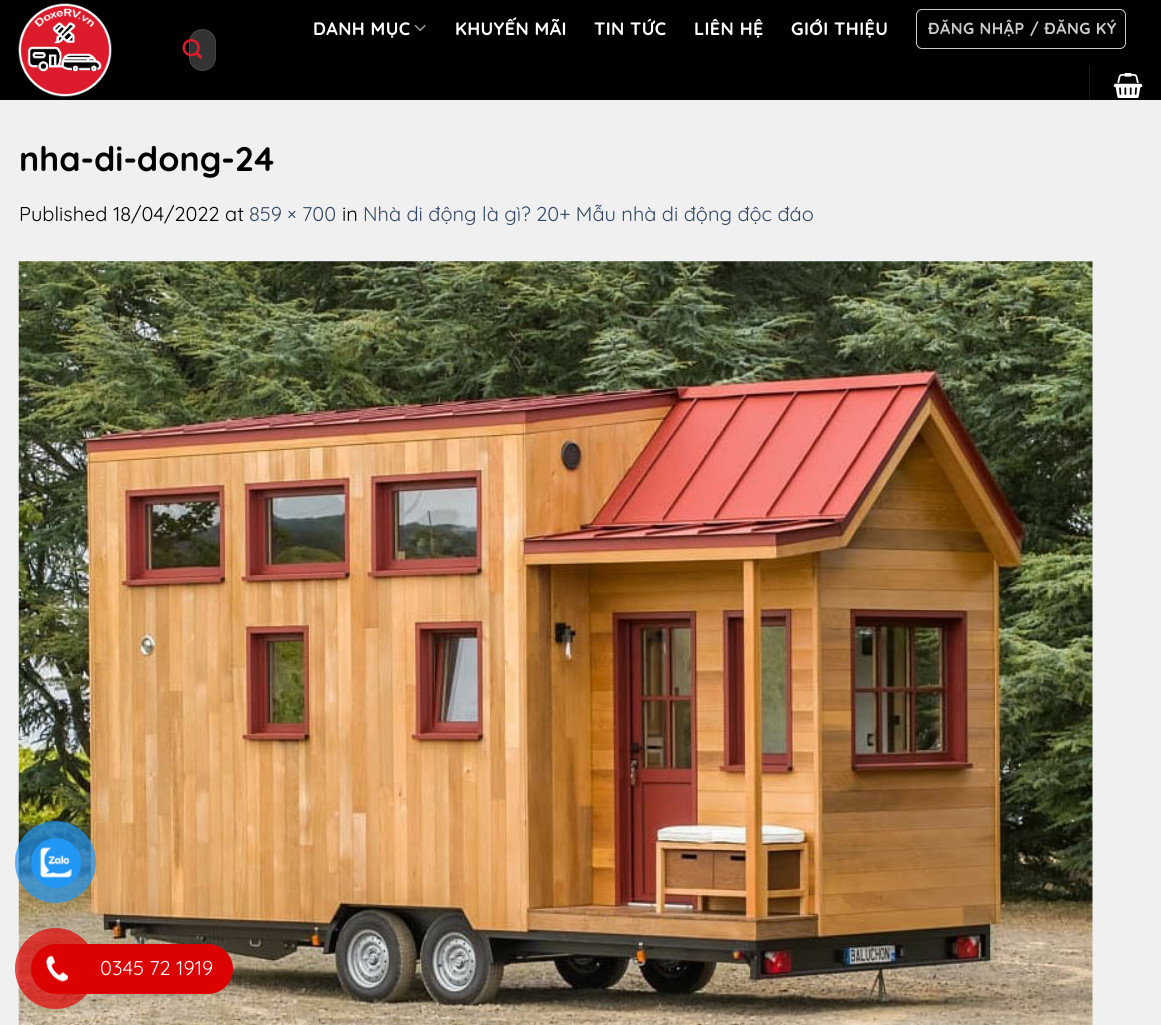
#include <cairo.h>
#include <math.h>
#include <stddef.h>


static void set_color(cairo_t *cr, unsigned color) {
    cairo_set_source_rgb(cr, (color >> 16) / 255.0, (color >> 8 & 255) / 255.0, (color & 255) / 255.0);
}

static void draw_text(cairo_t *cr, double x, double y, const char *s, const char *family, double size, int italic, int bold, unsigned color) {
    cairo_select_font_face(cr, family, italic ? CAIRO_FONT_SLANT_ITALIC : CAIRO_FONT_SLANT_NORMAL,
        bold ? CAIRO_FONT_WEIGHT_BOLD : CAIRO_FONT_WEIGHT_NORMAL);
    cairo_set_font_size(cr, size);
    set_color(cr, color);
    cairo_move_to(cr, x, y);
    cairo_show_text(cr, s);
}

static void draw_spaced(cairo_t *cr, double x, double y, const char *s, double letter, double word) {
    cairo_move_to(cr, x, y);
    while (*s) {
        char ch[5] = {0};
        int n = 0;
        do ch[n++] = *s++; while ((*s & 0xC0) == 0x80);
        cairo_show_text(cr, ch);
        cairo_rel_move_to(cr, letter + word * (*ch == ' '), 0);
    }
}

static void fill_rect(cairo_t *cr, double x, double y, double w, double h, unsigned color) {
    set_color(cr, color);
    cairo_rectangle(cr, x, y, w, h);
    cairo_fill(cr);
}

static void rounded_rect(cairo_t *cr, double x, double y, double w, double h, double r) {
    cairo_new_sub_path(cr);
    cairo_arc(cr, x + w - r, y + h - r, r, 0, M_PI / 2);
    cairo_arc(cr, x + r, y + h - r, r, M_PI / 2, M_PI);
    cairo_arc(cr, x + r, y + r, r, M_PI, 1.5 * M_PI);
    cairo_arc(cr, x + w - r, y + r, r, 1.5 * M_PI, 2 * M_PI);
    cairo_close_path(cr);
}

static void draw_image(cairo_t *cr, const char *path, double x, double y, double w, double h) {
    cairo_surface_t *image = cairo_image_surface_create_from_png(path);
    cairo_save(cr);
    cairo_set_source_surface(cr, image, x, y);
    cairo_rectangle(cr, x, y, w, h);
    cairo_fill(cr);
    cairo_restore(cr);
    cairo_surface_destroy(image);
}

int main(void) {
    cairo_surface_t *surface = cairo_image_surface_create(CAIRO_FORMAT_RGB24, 1161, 1025);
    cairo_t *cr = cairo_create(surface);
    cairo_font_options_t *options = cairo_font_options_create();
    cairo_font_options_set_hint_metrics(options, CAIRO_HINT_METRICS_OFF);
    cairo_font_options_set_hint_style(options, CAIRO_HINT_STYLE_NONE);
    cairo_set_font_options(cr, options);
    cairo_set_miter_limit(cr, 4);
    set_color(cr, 0xF0F0F0);
    cairo_paint(cr);
    fill_rect(cr, 0, 0, 1161, 100, 0x000000);
    fill_rect(cr, 1089, 66, 1, 34, 0x1A1A1A);
    draw_image(cr, "assets/img1.png", 18, 3, 94, 94);
    set_color(cr, 0x333333);
    rounded_rect(cr, 189, 29, 27, 42, 13.5);
    cairo_fill(cr);
    rounded_rect(cr, 189.5, 29.5, 26, 41, 13);
    cairo_set_source_rgba(cr, 1, 1, 1, 0.09);
    cairo_set_line_width(cr, 1);
    cairo_stroke(cr);
    draw_image(cr, "assets/img2.png", 182, 39, 21, 20);
    cairo_select_font_face(cr, "Quicksand", CAIRO_FONT_SLANT_NORMAL, CAIRO_FONT_WEIGHT_BOLD);
    cairo_set_font_size(cr, 18);
    set_color(cr, 0xFFFFFF);
    draw_spaced(cr, 313, 35, "DANH MỤC", 0.4, 0);
    draw_image(cr, "assets/img3.png", 414, 24, 12, 8);
    draw_spaced(cr, 455, 35, "KHUYẾN MÃI", 0.4, 0);
    draw_spaced(cr, 594, 35, "TIN TỨC", 0.4, 0);
    draw_spaced(cr, 694, 35, "LIÊN HỆ", 0.4, 0);
    draw_spaced(cr, 791, 35, "GIỚI THIỆU", 0.4, 0);
    rounded_rect(cr, 916.5, 9.5, 209, 39, 5.5);
    set_color(cr, 0xCCCCCC);
    cairo_stroke(cr);
    cairo_set_font_size(cr, 16);
    draw_spaced(cr, 928, 34, "ĐĂNG NHẬP / ĐĂNG KÝ", 0.5, 0);
    draw_image(cr, "assets/img4.png", 1113, 73, 30, 25);
    draw_text(cr, 19, 171, "nha-di-dong-24", "Quicksand", 34, 0, 1, 0x000000);
    draw_text(cr, 19, 221, "Published 18/04/2022 at", "Quicksand", 20, 0, 0, 0x000000);
    draw_text(cr, 249, 221, "859 × 700", "Quicksand", 20, 0, 0, 0x334862);
    draw_text(cr, 342, 221, "in", "Quicksand", 20, 0, 0, 0x000000);
    draw_text(cr, 363, 221, "Nhà di động là gì? 20+ Mẫu nhà di động độc đáo", "Quicksand", 20, 0, 0, 0x334862);
    draw_image(cr, "assets/img5.png", 18, 261, 1075, 764);
    cairo_set_source_rgba(cr, 0.129, 0.588, 0.953, 0.7);
    rounded_rect(cr, 15, 821, 81, 82, 40.5);
    cairo_fill(cr);
    set_color(cr, 0x2196F3);
    cairo_arc(cr, 56, 863, 25, 0, 2 * M_PI);
    cairo_fill(cr);
    draw_image(cr, "assets/img6.png", 39, 847, 33, 31);
    set_color(cr, 0xDD0202);
    rounded_rect(cr, 38, 944, 195, 50, 25);
    cairo_fill(cr);
    cairo_set_source_rgba(cr, 0.867, 0.008, 0.008, 0.7);
    cairo_arc(cr, 55.5, 968.5, 40.5, 0, 2 * M_PI);
    cairo_fill(cr);
    set_color(cr, 0xDD0202);
    cairo_arc(cr, 56, 969, 25, 0, 2 * M_PI);
    cairo_fill(cr);
    draw_image(cr, "assets/img7.png", 46, 955, 22, 27);
    draw_text(cr, 100, 975, "0345 72 1919", "Quicksand", 20, 0, 0, 0xFFFFFF);
    cairo_surface_write_to_png(surface, "output.png");
    cairo_font_options_destroy(options);
    cairo_destroy(cr);
    cairo_surface_destroy(surface);
    return 0;
}
